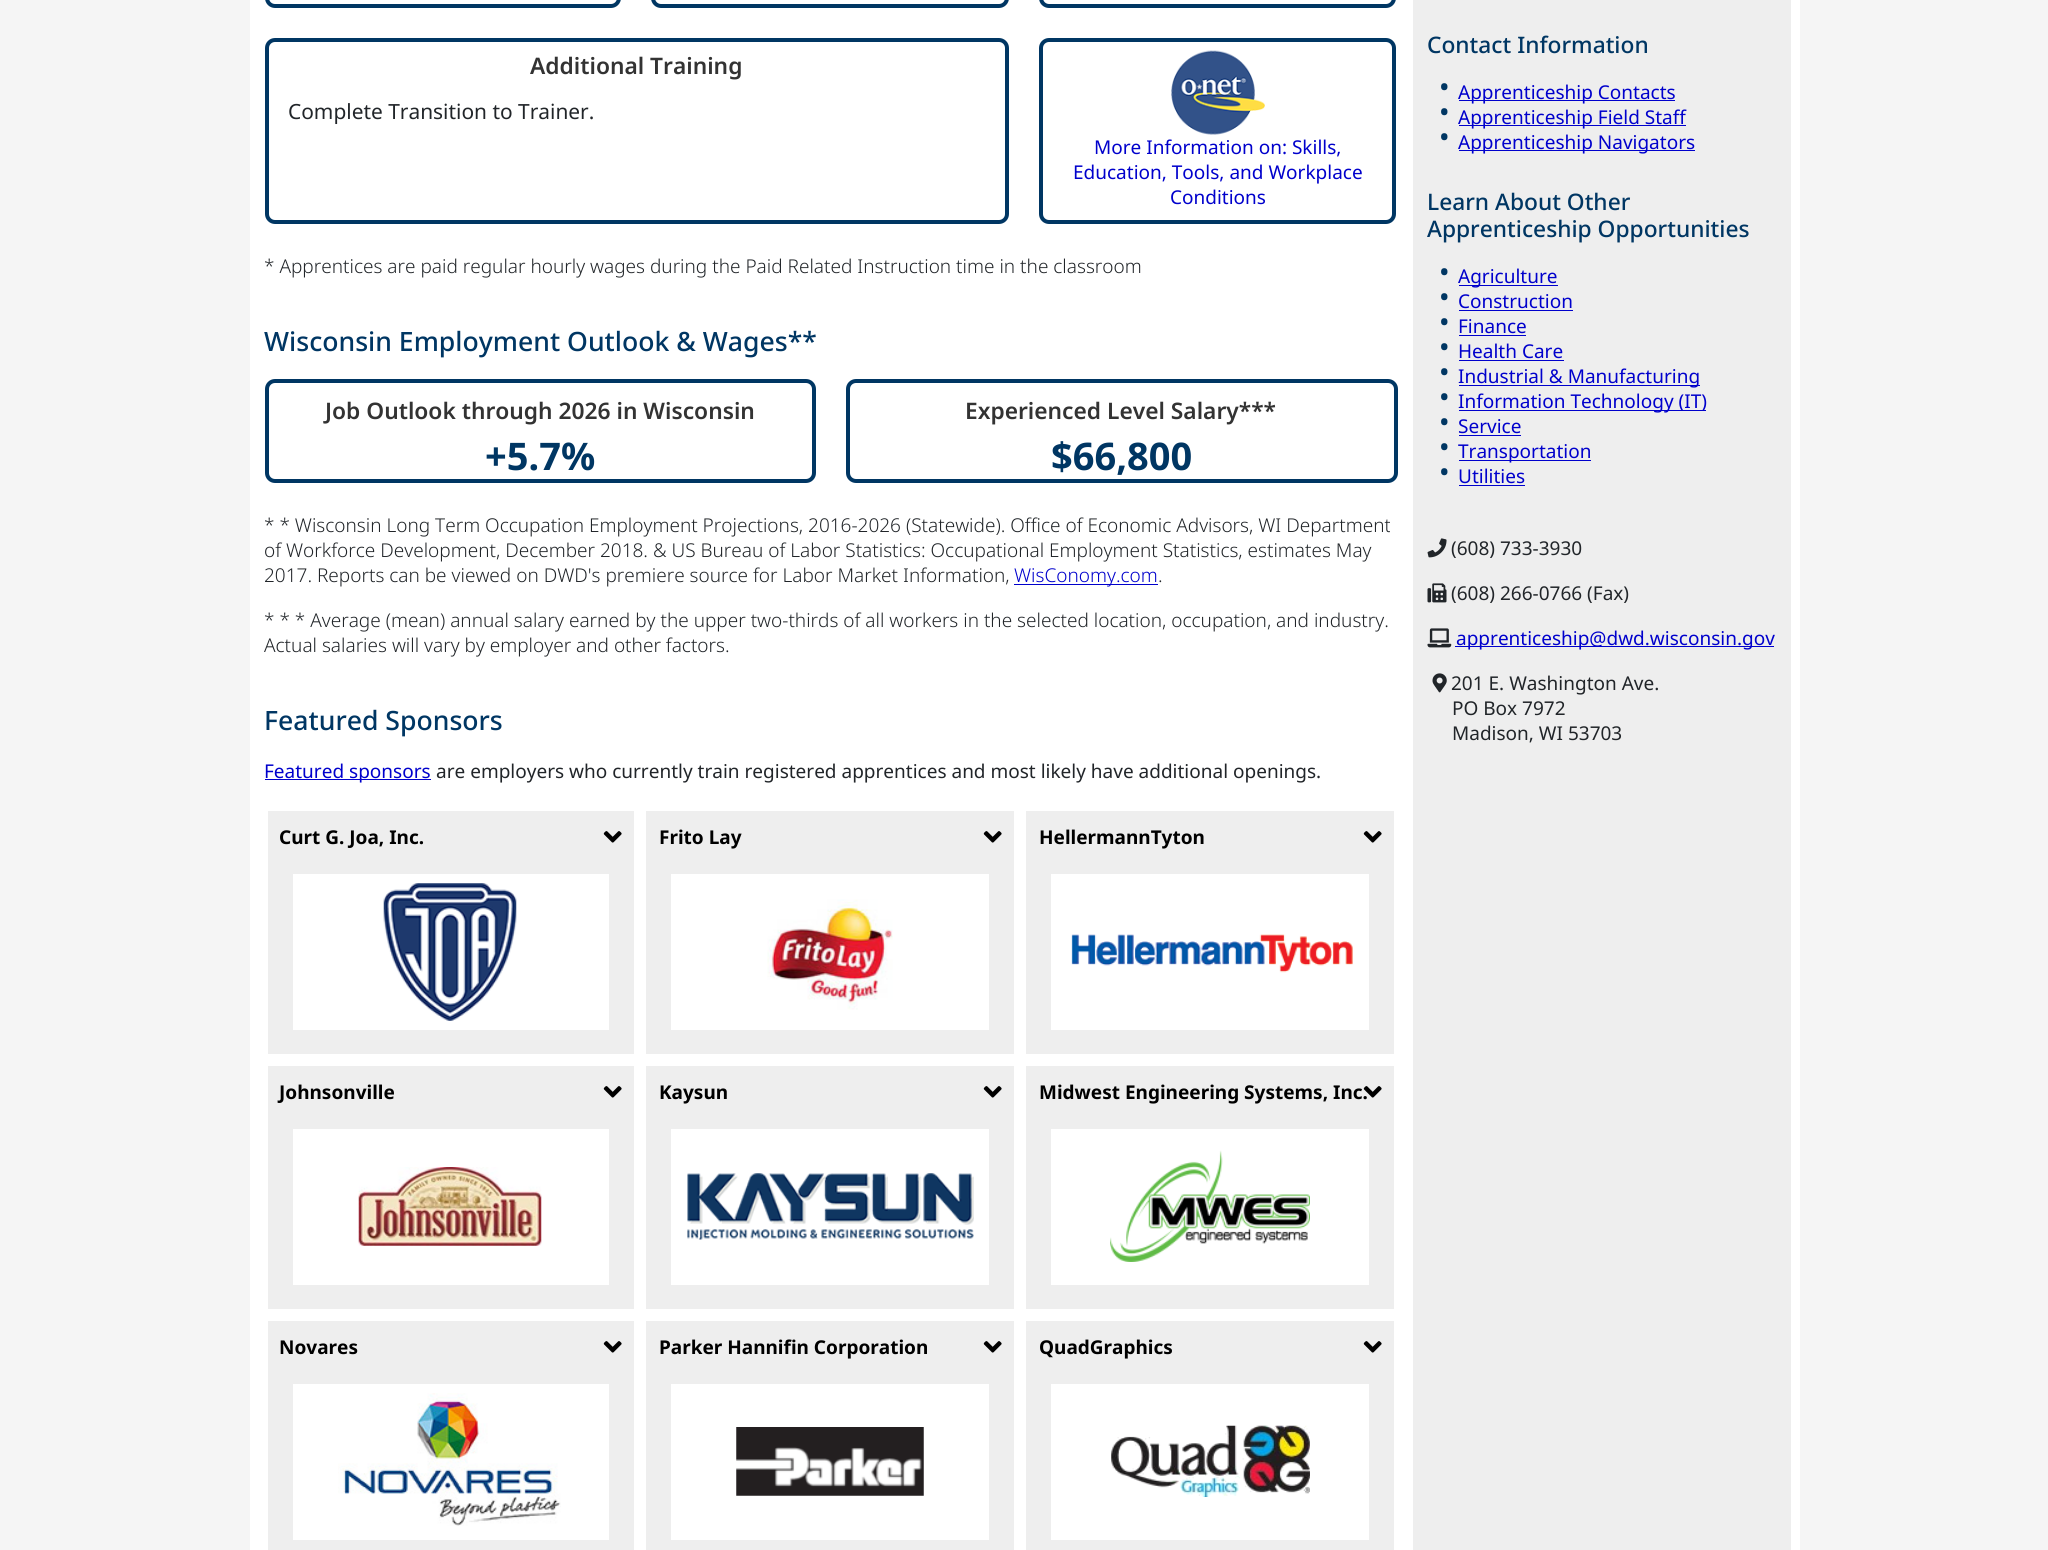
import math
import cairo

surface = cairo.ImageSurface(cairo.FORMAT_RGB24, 2048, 1550)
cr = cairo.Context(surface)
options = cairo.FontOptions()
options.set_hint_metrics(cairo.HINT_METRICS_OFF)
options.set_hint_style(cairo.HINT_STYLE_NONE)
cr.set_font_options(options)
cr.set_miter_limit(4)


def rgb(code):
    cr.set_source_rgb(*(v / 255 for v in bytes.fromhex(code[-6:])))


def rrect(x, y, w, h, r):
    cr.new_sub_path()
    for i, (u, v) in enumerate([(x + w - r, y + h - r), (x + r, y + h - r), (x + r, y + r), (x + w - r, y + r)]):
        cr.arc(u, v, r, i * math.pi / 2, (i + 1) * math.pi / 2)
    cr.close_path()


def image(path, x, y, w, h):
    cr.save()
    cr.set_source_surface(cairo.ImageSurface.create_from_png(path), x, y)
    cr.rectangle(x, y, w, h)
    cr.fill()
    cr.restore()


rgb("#f5f5f5")
cr.paint()
rgb("#ffffff")
cr.rectangle(250, 0, 1550, 1550)
cr.fill()
rrect(267, -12, 352, 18, 8)
rgb("#003663")
cr.set_line_width(4)
cr.stroke()
rrect(653, -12, 354, 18, 8)
cr.stroke()
rrect(1041, -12, 353, 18, 8)
cr.stroke()
rrect(267, 40, 740, 182, 8)
cr.stroke()
rrect(1041, 40, 353, 182, 8)
cr.stroke()
image("img/1.png", 1171, 50, 94, 85)
rrect(267, 381, 547, 100, 8)
cr.stroke()
rrect(848, 381, 548, 100, 8)
cr.stroke()
for x, y, w, h, color in [
    (1014, 584, 144, 1, "#0000cc"),
    (265, 779, 166, 1, "#0000cc"),
    (268, 811, 366, 243, "#eeeeee"),
]:
    rgb(color)
    cr.rectangle(x, y, w, h)
    cr.fill()
image("img/2.png", 603, 831, 19, 12)
rgb("#ffffff")
cr.rectangle(293, 874, 316, 156)
cr.fill()
image("img/3.png", 383, 883, 134, 138)
rgb("#eeeeee")
cr.rectangle(646, 811, 368, 243)
cr.fill()
image("img/2.png", 983, 831, 19, 12)
rgb("#ffffff")
cr.rectangle(671, 874, 318, 156)
cr.fill()
image("img/4.png", 767, 899, 126, 111)
rgb("#eeeeee")
cr.rectangle(1026, 811, 368, 243)
cr.fill()
image("img/2.png", 1363, 831, 19, 12)
rgb("#ffffff")
cr.rectangle(1051, 874, 318, 156)
cr.fill()
image("img/5.png", 1071, 934, 282, 39)
rgb("#eeeeee")
cr.rectangle(268, 1066, 366, 243)
cr.fill()
image("img/2.png", 603, 1086, 19, 12)
rgb("#ffffff")
cr.rectangle(293, 1129, 316, 156)
cr.fill()
image("img/6.png", 358, 1167, 184, 79)
rgb("#eeeeee")
cr.rectangle(646, 1066, 368, 243)
cr.fill()
image("img/2.png", 983, 1086, 19, 12)
rgb("#ffffff")
cr.rectangle(671, 1129, 318, 156)
cr.fill()
image("img/7.png", 687, 1173, 287, 67)
rgb("#eeeeee")
cr.rectangle(1026, 1066, 368, 243)
cr.fill()
rgb("#ffffff")
cr.rectangle(1051, 1129, 318, 156)
cr.fill()
image("img/9.png", 1110, 1150, 200, 112)
rgb("#eeeeee")
cr.rectangle(268, 1321, 366, 229)
cr.fill()
image("img/2.png", 603, 1341, 19, 12)
rgb("#ffffff")
cr.rectangle(293, 1384, 316, 156)
cr.fill()
image("img/10.png", 338, 1393, 223, 133)
rgb("#eeeeee")
cr.rectangle(646, 1321, 368, 229)
cr.fill()
image("img/2.png", 983, 1341, 19, 12)
rgb("#ffffff")
cr.rectangle(671, 1384, 318, 156)
cr.fill()
image("img/11.png", 736, 1427, 188, 69)
rgb("#eeeeee")
cr.rectangle(1026, 1321, 368, 229)
cr.fill()
image("img/2.png", 1363, 1341, 19, 12)
rgb("#ffffff")
cr.rectangle(1051, 1384, 318, 156)
cr.fill()
image("img/12.png", 1111, 1425, 199, 72)
for x, y, w, h, color in [
    (1413, 0, 378, 1550, "#eeeeee"),
    (1459, 100, 216, 1, "#0000cc"),
    (1459, 125, 227, 1, "#0000cc"),
    (1459, 150, 236, 1, "#0000cc"),
    (1459, 285, 99, 1, "#0000cc"),
    (1459, 310, 114, 1, "#0000cc"),
    (1459, 335, 67, 1, "#0000cc"),
    (1459, 360, 105, 1, "#0000cc"),
    (1459, 385, 241, 1, "#0000cc"),
    (1459, 410, 247, 1, "#0000cc"),
    (1459, 435, 62, 1, "#0000cc"),
    (1459, 460, 132, 1, "#0000cc"),
    (1459, 485, 66, 1, "#0000cc"),
]:
    rgb(color)
    cr.rectangle(x, y, w, h)
    cr.fill()
image("img/13.png", 1427, 538, 20, 20)
image("img/14.png", 1427, 583, 20, 20)
image("img/15.png", 1427, 628, 25, 20)
cr.rectangle(1455, 646, 319, 1)
cr.fill()
image("img/16.png", 1432, 673, 15, 20)
cr.select_font_face("Noto Sans SemiBold")
cr.set_font_size(22.75)
rgb("#333333")
cr.move_to(530, 74)
cr.show_text("Additional Training")
cr.select_font_face("Noto Sans")
cr.set_font_size(20.9)
rgb("#212529")
cr.move_to(288, 119)
cr.show_text("Complete Transition to Trainer.")
cr.set_font_size(19)
rgb("#0000cc")
for x, y, s in [
    (1094, 154, "More Information on: Skills,"),
    (1073, 179, "Education, Tools, and Workplace"),
    (1170, 204, "Conditions"),
]:
    cr.move_to(x, y)
    cr.show_text(s)
cr.select_font_face("Noto Sans Light")
rgb("#212529")
cr.move_to(264, 273)
cr.show_text("* Apprentices are paid regular hourly wages during the Paid Related Instruction time in the classroom")
cr.select_font_face("Noto Sans Medium")
cr.set_font_size(26.6)
rgb("#003663")
cr.move_to(264, 351)
cr.show_text("Wisconsin Employment Outlook & Wages**")
cr.select_font_face("Noto Sans SemiBold")
cr.set_font_size(22.75)
rgb("#333333")
cr.move_to(325, 419)
cr.show_text("Job Outlook through 2026 in Wisconsin")
cr.select_font_face("Noto Sans", cairo.FONT_SLANT_NORMAL, cairo.FONT_WEIGHT_BOLD)
cr.set_font_size(38)
rgb("#003663")
cr.move_to(485, 470)
cr.show_text("+5.7%")
cr.select_font_face("Noto Sans SemiBold")
cr.set_font_size(22.75)
rgb("#333333")
cr.move_to(965, 419)
cr.show_text("Experienced Level Salary***")
cr.select_font_face("Noto Sans", cairo.FONT_SLANT_NORMAL, cairo.FONT_WEIGHT_BOLD)
cr.set_font_size(38)
rgb("#003663")
cr.move_to(1051, 470)
cr.show_text("$66,800")
cr.select_font_face("Noto Sans Light")
cr.set_font_size(19)
rgb("#212529")
for x, y, s in [
    (264, 532, "* * Wisconsin Long Term Occupation Employment Projections, 2016-2026 (Statewide). Office of Economic Advisors, WI Department"),
    (264, 557, "of Workforce Development, December 2018. & US Bureau of Labor Statistics: Occupational Employment Statistics, estimates May"),
    (264, 582, "2017. Reports can be viewed on DWD's premiere source for Labor Market Information,"),
]:
    cr.move_to(x, y)
    cr.show_text(s)
rgb("#0000cc")
cr.move_to(1014, 582)
cr.show_text("WisConomy.com")
rgb("#212529")
for x, y, s in [
    (1158, 582, "."),
    (264, 627, "* * * Average (mean) annual salary earned by the upper two-thirds of all workers in the selected location, occupation, and industry."),
    (264, 652, "Actual salaries will vary by employer and other factors."),
]:
    cr.move_to(x, y)
    cr.show_text(s)
cr.select_font_face("Noto Sans Medium")
cr.set_font_size(26.6)
rgb("#003663")
cr.move_to(264, 730)
cr.show_text("Featured Sponsors")
cr.select_font_face("Noto Sans")
cr.set_font_size(19)
rgb("#0000cc")
cr.move_to(264, 778)
cr.show_text("Featured sponsors")
rgb("#212529")
cr.move_to(436, 778)
cr.show_text("are employers who currently train registered apprentices and most likely have additional openings.")
cr.select_font_face("Noto Sans", cairo.FONT_SLANT_NORMAL, cairo.FONT_WEIGHT_BOLD)
rgb("#000000")
for x, y, s in [
    (279, 844, "Curt G. Joa, Inc."),
    (659, 844, "Frito Lay"),
    (1039, 844, "HellermannTyton"),
    (279, 1099, "Johnsonville"),
    (659, 1099, "Kaysun"),
    (1039, 1099, "Midwest Engineering Systems, Inc."),
]:
    cr.move_to(x, y)
    cr.show_text(s)
image("img/8.png", 1363, 1086, 19, 12)
for x, y, s in [
    (279, 1354, "Novares"),
    (659, 1354, "Parker Hannifin Corporation"),
    (1039, 1354, "QuadGraphics"),
]:
    cr.move_to(x, y)
    cr.show_text(s)
cr.select_font_face("Noto Sans Medium")
cr.set_font_size(22.75)
rgb("#003663")
cr.move_to(1427, 53)
cr.show_text("Contact Information")
cr.select_font_face("Noto Sans", cairo.FONT_SLANT_NORMAL, cairo.FONT_WEIGHT_BOLD)
cr.move_to(1440, 95)
cr.show_text("•")
cr.select_font_face("Noto Sans")
cr.set_font_size(19)
rgb("#0000cc")
cr.move_to(1458, 99)
cr.show_text("Apprenticeship Contacts")
cr.select_font_face("Noto Sans", cairo.FONT_SLANT_NORMAL, cairo.FONT_WEIGHT_BOLD)
cr.set_font_size(22.75)
rgb("#003663")
cr.move_to(1440, 120)
cr.show_text("•")
cr.select_font_face("Noto Sans")
cr.set_font_size(19)
rgb("#0000cc")
cr.move_to(1458, 124)
cr.show_text("Apprenticeship Field Staff")
cr.select_font_face("Noto Sans", cairo.FONT_SLANT_NORMAL, cairo.FONT_WEIGHT_BOLD)
cr.set_font_size(22.75)
rgb("#003663")
cr.move_to(1440, 145)
cr.show_text("•")
cr.select_font_face("Noto Sans")
cr.set_font_size(19)
rgb("#0000cc")
cr.move_to(1458, 149)
cr.show_text("Apprenticeship Navigators")
cr.select_font_face("Noto Sans Medium")
cr.set_font_size(22.75)
rgb("#003663")
cr.move_to(1427, 210)
cr.show_text("Learn About Other")
cr.move_to(1427, 237)
cr.show_text("Apprenticeship Opportunities")
cr.select_font_face("Noto Sans", cairo.FONT_SLANT_NORMAL, cairo.FONT_WEIGHT_BOLD)
cr.move_to(1440, 280)
cr.show_text("•")
cr.select_font_face("Noto Sans")
cr.set_font_size(19)
rgb("#0000cc")
cr.move_to(1458, 283)
cr.show_text("Agriculture")
cr.select_font_face("Noto Sans", cairo.FONT_SLANT_NORMAL, cairo.FONT_WEIGHT_BOLD)
cr.set_font_size(22.75)
rgb("#003663")
cr.move_to(1440, 305)
cr.show_text("•")
cr.select_font_face("Noto Sans")
cr.set_font_size(19)
rgb("#0000cc")
cr.move_to(1458, 308)
cr.show_text("Construction")
cr.select_font_face("Noto Sans", cairo.FONT_SLANT_NORMAL, cairo.FONT_WEIGHT_BOLD)
cr.set_font_size(22.75)
rgb("#003663")
cr.move_to(1440, 330)
cr.show_text("•")
cr.select_font_face("Noto Sans")
cr.set_font_size(19)
rgb("#0000cc")
cr.move_to(1458, 333)
cr.show_text("Finance")
cr.select_font_face("Noto Sans", cairo.FONT_SLANT_NORMAL, cairo.FONT_WEIGHT_BOLD)
cr.set_font_size(22.75)
rgb("#003663")
cr.move_to(1440, 355)
cr.show_text("•")
cr.select_font_face("Noto Sans")
cr.set_font_size(19)
rgb("#0000cc")
cr.move_to(1458, 358)
cr.show_text("Health Care")
cr.select_font_face("Noto Sans", cairo.FONT_SLANT_NORMAL, cairo.FONT_WEIGHT_BOLD)
cr.set_font_size(22.75)
rgb("#003663")
cr.move_to(1440, 380)
cr.show_text("•")
cr.select_font_face("Noto Sans")
cr.set_font_size(19)
rgb("#0000cc")
cr.move_to(1458, 383)
cr.show_text("Industrial & Manufacturing")
cr.select_font_face("Noto Sans", cairo.FONT_SLANT_NORMAL, cairo.FONT_WEIGHT_BOLD)
cr.set_font_size(22.75)
rgb("#003663")
cr.move_to(1440, 405)
cr.show_text("•")
cr.select_font_face("Noto Sans")
cr.set_font_size(19)
rgb("#0000cc")
cr.move_to(1458, 408)
cr.show_text("Information Technology (IT)")
cr.select_font_face("Noto Sans", cairo.FONT_SLANT_NORMAL, cairo.FONT_WEIGHT_BOLD)
cr.set_font_size(22.75)
rgb("#003663")
cr.move_to(1440, 430)
cr.show_text("•")
cr.select_font_face("Noto Sans")
cr.set_font_size(19)
rgb("#0000cc")
cr.move_to(1458, 433)
cr.show_text("Service")
cr.select_font_face("Noto Sans", cairo.FONT_SLANT_NORMAL, cairo.FONT_WEIGHT_BOLD)
cr.set_font_size(22.75)
rgb("#003663")
cr.move_to(1440, 455)
cr.show_text("•")
cr.select_font_face("Noto Sans")
cr.set_font_size(19)
rgb("#0000cc")
cr.move_to(1458, 458)
cr.show_text("Transportation")
cr.select_font_face("Noto Sans", cairo.FONT_SLANT_NORMAL, cairo.FONT_WEIGHT_BOLD)
cr.set_font_size(22.75)
rgb("#003663")
cr.move_to(1440, 480)
cr.show_text("•")
cr.select_font_face("Noto Sans")
cr.set_font_size(19)
rgb("#0000cc")
cr.move_to(1458, 483)
cr.show_text("Utilities")
rgb("#212529")
cr.move_to(1451, 555)
cr.show_text("(608) 733-3930")
cr.move_to(1451, 600)
cr.show_text("(608) 266-0766 (Fax)")
rgb("#0000cc")
cr.move_to(1456, 645)
cr.show_text("apprenticeship@dwd.wisconsin.gov")
rgb("#212529")
for x, y, s in [
    (1451, 690, "201 E. Washington Ave."),
    (1452, 715, "PO Box 7972"),
    (1452, 740, "Madison, WI 53703"),
]:
    cr.move_to(x, y)
    cr.show_text(s)
surface.write_to_png("page.png")
